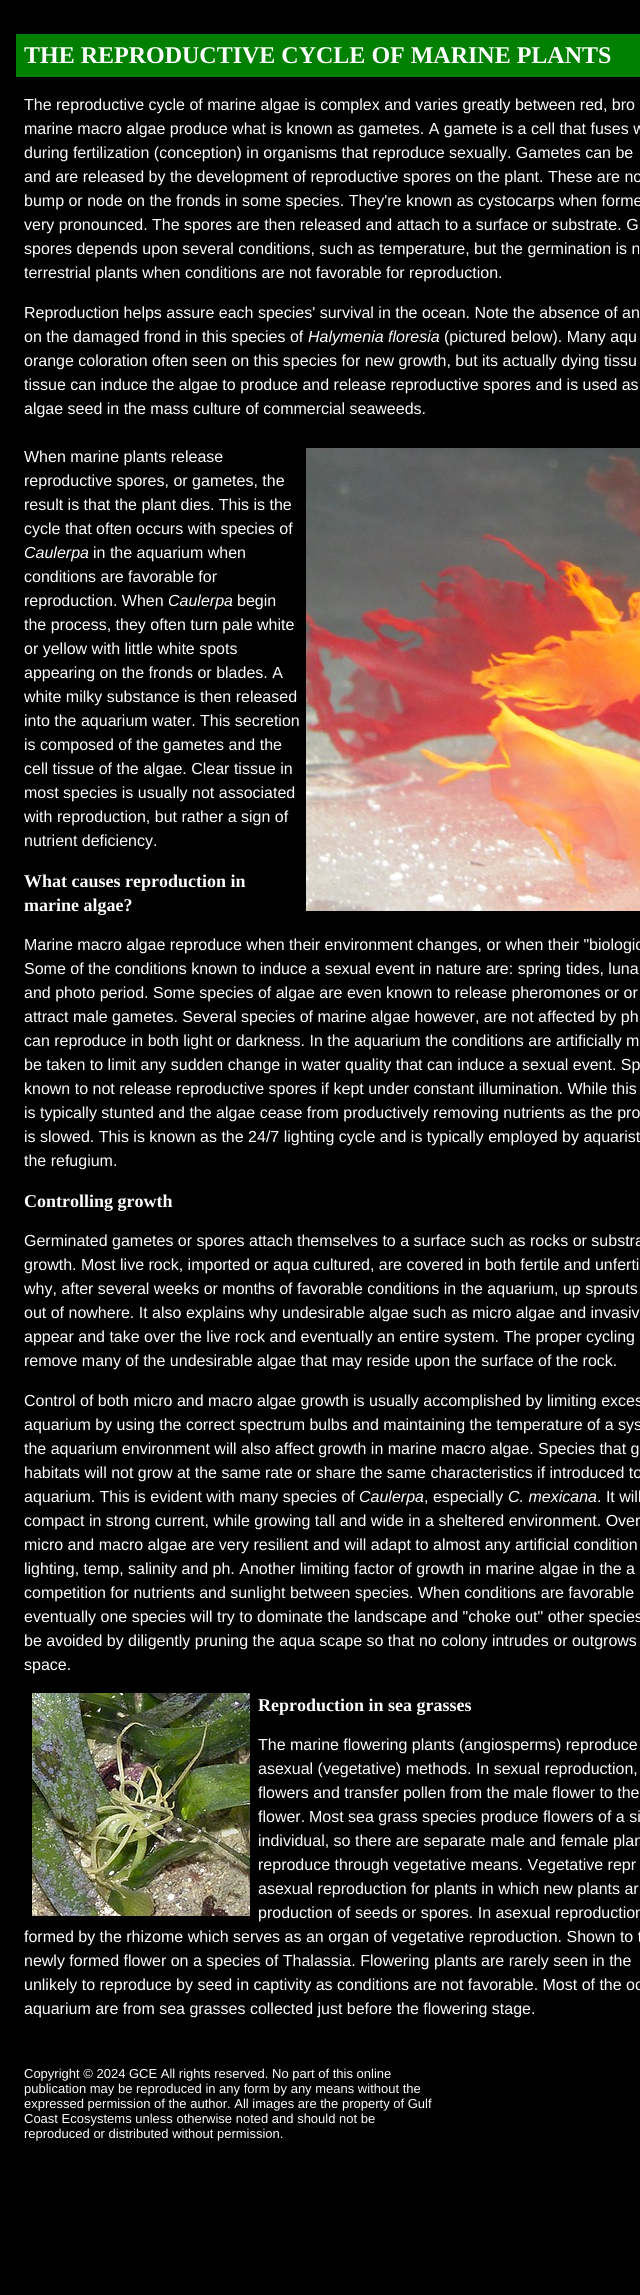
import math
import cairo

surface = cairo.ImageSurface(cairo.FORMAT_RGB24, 640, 2295)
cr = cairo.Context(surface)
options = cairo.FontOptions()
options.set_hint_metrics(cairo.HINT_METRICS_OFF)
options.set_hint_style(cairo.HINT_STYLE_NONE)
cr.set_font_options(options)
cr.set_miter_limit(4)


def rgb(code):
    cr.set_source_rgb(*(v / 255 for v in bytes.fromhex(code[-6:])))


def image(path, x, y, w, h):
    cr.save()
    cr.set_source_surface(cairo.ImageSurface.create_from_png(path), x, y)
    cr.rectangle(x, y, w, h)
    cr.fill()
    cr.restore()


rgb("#000000")
cr.paint()
rgb("#008000")
cr.rectangle(16, 34, 624, 43)
cr.fill()
image("img/1.png", 306, 448, 334, 463)
image("img/2.png", 32, 1693, 218, 223)
cr.select_font_face("Liberation Serif", cairo.FONT_SLANT_NORMAL, cairo.FONT_WEIGHT_BOLD)
cr.set_font_size(24)
rgb("#ffffff")
cr.move_to(24, 63)
cr.show_text("THE REPRODUCTIVE CYCLE OF MARINE PLANTS")
cr.select_font_face("Liberation Sans")
cr.set_font_size(16)
for x, y, s in [
    (24, 110, "The reproductive cycle of marine algae is complex and varies greatly between red, bro"),
    (24, 134, "marine macro algae produce what is known as gametes. A gamete is a cell that fuses w"),
    (24, 158, "during fertilization (conception) in organisms that reproduce sexually. Gametes can be"),
    (24, 182, "and are released by the development of reproductive spores on the plant. These are no"),
    (24, 206, "bump or node on the fronds in some species. They're known as cystocarps when forme"),
    (24, 230, "very pronounced. The spores are then released and attach to a surface or substrate. G"),
    (24, 254, "spores depends upon several conditions, such as temperature, but the germination is n"),
    (24, 278, "terrestrial plants when conditions are not favorable for reproduction."),
    (24, 318, "Reproduction helps assure each species' survival in the ocean. Note the absence of an"),
    (24, 342, "on the damaged frond in this species of"),
]:
    cr.move_to(x, y)
    cr.show_text(s)
cr.select_font_face("Liberation Sans", cairo.FONT_SLANT_ITALIC)
cr.move_to(308, 342)
cr.show_text("Halymenia floresia")
cr.select_font_face("Liberation Sans")
for x, y, s in [
    (444, 342, "(pictured below). Many aqu"),
    (24, 366, "orange coloration often seen on this species for new growth, but its actually dying tissu"),
    (24, 390, "tissue can induce the algae to produce and release reproductive spores and is used as"),
    (24, 414, "algae seed in the mass culture of commercial seaweeds."),
    (24, 462, "When marine plants release"),
    (24, 486, "reproductive spores, or gametes, the"),
    (24, 510, "result is that the plant dies. This is the"),
    (24, 534, "cycle that often occurs with species of"),
]:
    cr.move_to(x, y)
    cr.show_text(s)
cr.select_font_face("Liberation Sans", cairo.FONT_SLANT_ITALIC)
cr.move_to(24, 558)
cr.show_text("Caulerpa")
cr.select_font_face("Liberation Sans")
for x, y, s in [
    (93, 558, "in the aquarium when"),
    (24, 582, "conditions are favorable for"),
    (24, 606, "reproduction. When"),
]:
    cr.move_to(x, y)
    cr.show_text(s)
cr.select_font_face("Liberation Sans", cairo.FONT_SLANT_ITALIC)
cr.move_to(168, 606)
cr.show_text("Caulerpa")
cr.select_font_face("Liberation Sans")
for x, y, s in [
    (237, 606, "begin"),
    (24, 630, "the process, they often turn pale white"),
    (24, 654, "or yellow with little white spots"),
    (24, 678, "appearing on the fronds or blades. A"),
    (24, 702, "white milky substance is then released"),
    (24, 726, "into the aquarium water. This secretion"),
    (24, 750, "is composed of the gametes and the"),
    (24, 774, "cell tissue of the algae. Clear tissue in"),
    (24, 798, "most species is usually not associated"),
    (24, 822, "with reproduction, but rather a sign of"),
    (24, 846, "nutrient deficiency."),
]:
    cr.move_to(x, y)
    cr.show_text(s)
cr.select_font_face("Liberation Serif", cairo.FONT_SLANT_NORMAL, cairo.FONT_WEIGHT_BOLD)
cr.set_font_size(18)
cr.move_to(24, 887)
cr.show_text("What causes reproduction in")
cr.move_to(24, 911)
cr.show_text("marine algae?")
cr.select_font_face("Liberation Sans")
cr.set_font_size(16)
for x, y, s in [
    (24, 950, "Marine macro algae reproduce when their environment changes, or when their \"biologic"),
    (24, 974, "Some of the conditions known to induce a sexual event in nature are: spring tides, luna"),
    (24, 998, "and photo period. Some species of algae are even known to release pheromones or or"),
    (24, 1022, "attract male gametes. Several species of marine algae however, are not affected by ph"),
    (24, 1046, "can reproduce in both light or darkness. In the aquarium the conditions are artificially m"),
    (24, 1070, "be taken to limit any sudden change in water quality that can induce a sexual event. Sp"),
    (24, 1094, "known to not release reproductive spores if kept under constant illumination. While this"),
    (24, 1118, "is typically stunted and the algae cease from productively removing nutrients as the pro"),
    (24, 1142, "is slowed. This is known as the 24/7 lighting cycle and is typically employed by aquarist"),
    (24, 1166, "the refugium."),
]:
    cr.move_to(x, y)
    cr.show_text(s)
cr.select_font_face("Liberation Serif", cairo.FONT_SLANT_NORMAL, cairo.FONT_WEIGHT_BOLD)
cr.set_font_size(18)
cr.move_to(24, 1207)
cr.show_text("Controlling growth")
cr.select_font_face("Liberation Sans")
cr.set_font_size(16)
for x, y, s in [
    (24, 1246, "Germinated gametes or spores attach themselves to a surface such as rocks or substra"),
    (24, 1270, "growth. Most live rock, imported or aqua cultured, are covered in both fertile and unferti"),
    (24, 1294, "why, after several weeks or months of favorable conditions in the aquarium, up sprouts"),
    (24, 1318, "out of nowhere. It also explains why undesirable algae such as micro algae and invasiv"),
    (24, 1342, "appear and take over the live rock and eventually an entire system. The proper cycling"),
    (24, 1366, "remove many of the undesirable algae that may reside upon the surface of the rock."),
    (24, 1406, "Control of both micro and macro algae growth is usually accomplished by limiting exces"),
    (24, 1430, "aquarium by using the correct spectrum bulbs and maintaining the temperature of a sys"),
    (24, 1454, "the aquarium environment will also affect growth in marine macro algae. Species that g"),
    (24, 1478, "habitats will not grow at the same rate or share the same characteristics if introduced to"),
    (24, 1502, "aquarium. This is evident with many species of"),
]:
    cr.move_to(x, y)
    cr.show_text(s)
cr.select_font_face("Liberation Sans", cairo.FONT_SLANT_ITALIC)
cr.move_to(359, 1502)
cr.show_text("Caulerpa")
cr.select_font_face("Liberation Sans")
cr.move_to(424, 1502)
cr.show_text(", especially")
cr.select_font_face("Liberation Sans", cairo.FONT_SLANT_ITALIC)
cr.move_to(508, 1502)
cr.show_text("C. mexicana")
cr.select_font_face("Liberation Sans")
for x, y, s in [
    (597, 1502, ". It will"),
    (24, 1526, "compact in strong current, while growing tall and wide in a sheltered environment. Over"),
    (24, 1550, "micro and macro algae are very resilient and will adapt to almost any artificial condition"),
    (24, 1574, "lighting, temp, salinity and ph. Another limiting factor of growth in marine algae in the a"),
    (24, 1598, "competition for nutrients and sunlight between species. When conditions are favorable"),
    (24, 1622, "eventually one species will try to dominate the landscape and \"choke out\" other species"),
    (24, 1646, "be avoided by diligently pruning the aqua scape so that no colony intrudes or outgrows"),
    (24, 1670, "space."),
]:
    cr.move_to(x, y)
    cr.show_text(s)
cr.select_font_face("Liberation Serif", cairo.FONT_SLANT_NORMAL, cairo.FONT_WEIGHT_BOLD)
cr.set_font_size(18)
cr.move_to(258, 1711)
cr.show_text("Reproduction in sea grasses")
cr.select_font_face("Liberation Sans")
cr.set_font_size(16)
for x, y, s in [
    (258, 1750, "The marine flowering plants (angiosperms) reproduce"),
    (258, 1774, "asexual (vegetative) methods. In sexual reproduction,"),
    (258, 1798, "flowers and transfer pollen from the male flower to the"),
    (258, 1822, "flower."),
    (309, 1822, "Most sea grass species produce flowers of a si"),
    (258, 1846, "individual, so there are separate male and female plan"),
    (258, 1870, "reproduce through vegetative means. Vegetative repr"),
    (258, 1894, "asexual reproduction for plants in which new plants ar"),
    (258, 1918, "production of seeds or spores. In asexual reproduction"),
    (24, 1942, "formed by the rhizome which serves as an organ of vegetative reproduction. Shown to t"),
    (24, 1966, "newly formed flower on a species of Thalassia. Flowering plants are rarely seen in the"),
    (24, 1990, "unlikely to reproduce by seed in captivity as conditions are not favorable. Most of the oc"),
    (24, 2014, "aquarium are from sea grasses collected just before the flowering stage."),
]:
    cr.move_to(x, y)
    cr.show_text(s)
cr.set_font_size(13)
for x, y, s in [
    (24, 2078, "Copyright © 2024 GCE All rights reserved. No part of this online"),
    (24, 2093, "publication may be reproduced in any form by any means without the"),
    (24, 2108, "expressed permission of the author. All images are the property of Gulf"),
    (24, 2123, "Coast Ecosystems unless otherwise noted and should not be"),
    (24, 2138, "reproduced or distributed without permission."),
]:
    cr.move_to(x, y)
    cr.show_text(s)
surface.write_to_png("page.png")
